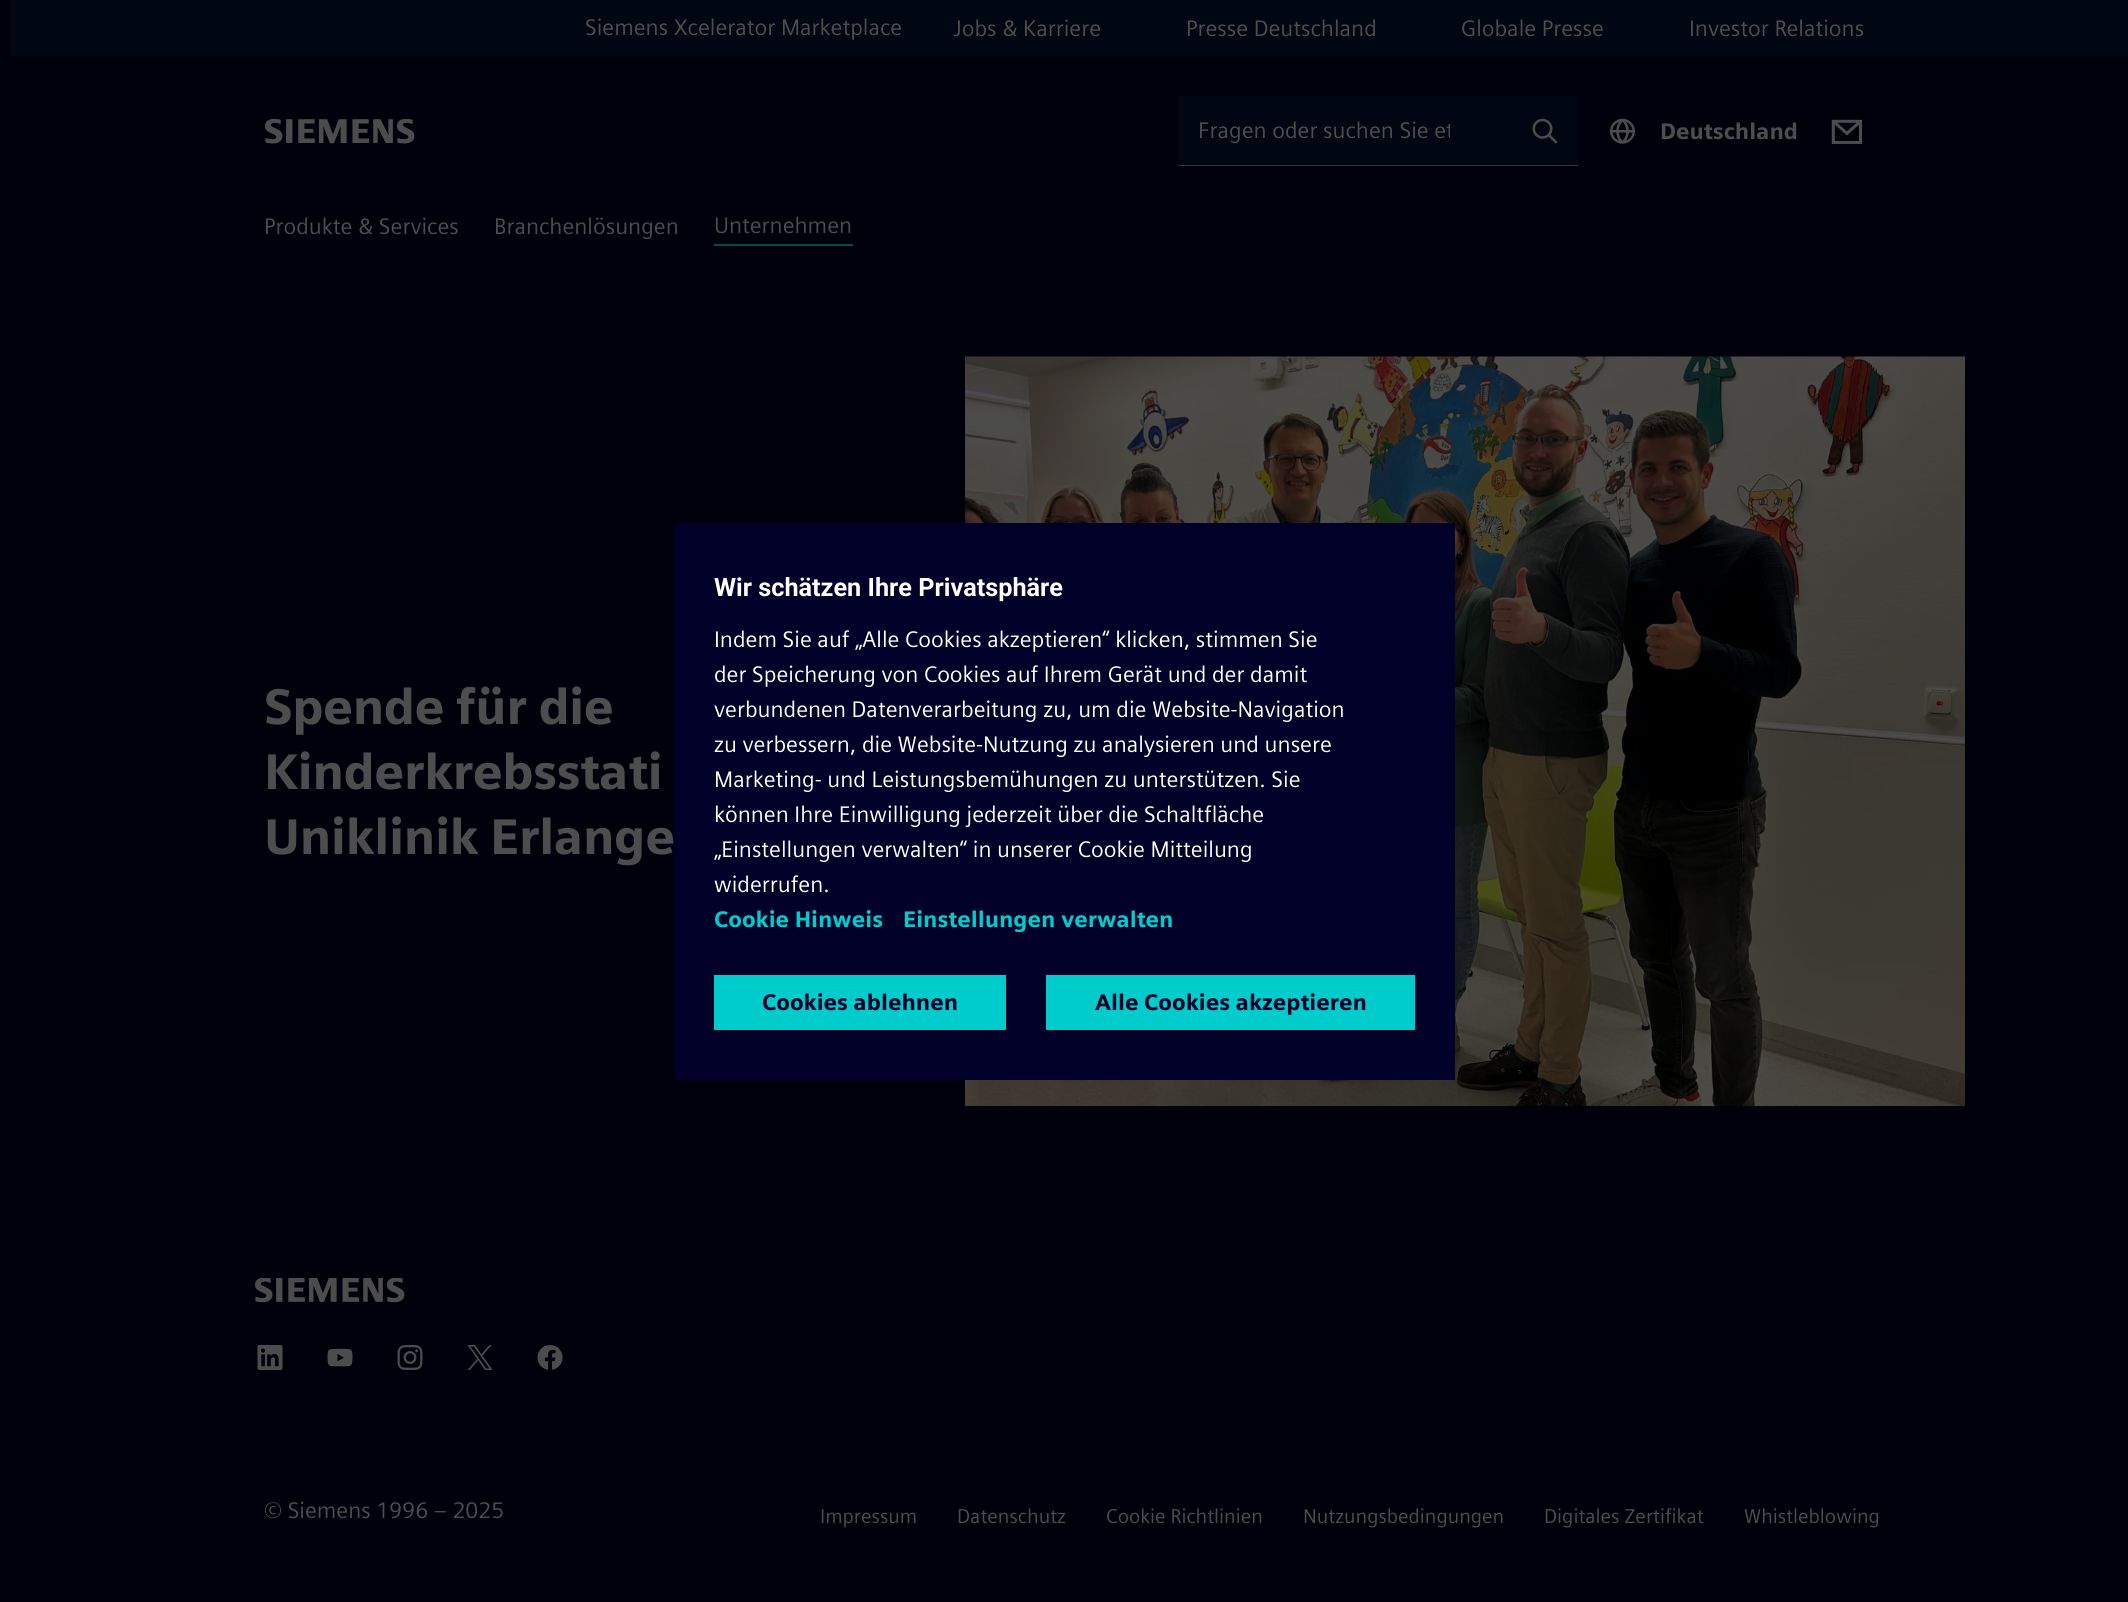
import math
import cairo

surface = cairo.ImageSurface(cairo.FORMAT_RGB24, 2128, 1602)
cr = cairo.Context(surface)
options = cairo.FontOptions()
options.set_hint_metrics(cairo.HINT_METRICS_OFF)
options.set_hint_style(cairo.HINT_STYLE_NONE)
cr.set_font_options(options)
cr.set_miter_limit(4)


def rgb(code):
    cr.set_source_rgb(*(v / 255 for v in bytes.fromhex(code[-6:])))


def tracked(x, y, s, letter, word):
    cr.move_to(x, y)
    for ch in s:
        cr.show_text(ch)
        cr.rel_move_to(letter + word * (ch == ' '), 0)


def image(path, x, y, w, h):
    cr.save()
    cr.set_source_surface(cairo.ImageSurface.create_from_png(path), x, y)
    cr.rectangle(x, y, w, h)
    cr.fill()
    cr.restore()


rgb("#00000c")
cr.paint()
rgb("#000712")
cr.rectangle(10, 0, 2118, 56)
cr.fill()
image("img/1.png", 265, 119, 150, 25)
cr.rectangle(1178, 96, 400, 69)
cr.fill()
rgb("#363639")
cr.rectangle(1178, 165, 400, 1)
cr.fill()
image("img/2.png", 1532, 118, 26, 26)
image("img/3.png", 1610, 118, 25, 26)
image("img/4.png", 1831, 119, 31, 25)
rgb("#004d38")
cr.rectangle(714, 244, 139, 2)
cr.fill()
image("img/5.png", 965, 356, 1000, 751)
image("img/6.png", 255, 1278, 150, 25)
image("img/7.png", 257, 1345, 26, 25)
image("img/8.png", 327, 1348, 26, 19)
image("img/9.png", 397, 1345, 26, 25)
image("img/10.png", 467, 1345, 26, 25)
image("img/11.png", 537, 1345, 26, 25)
for x, y, w, h, color in [
    (674, 523, 781, 557, "#000028"),
    (714, 975, 292, 55, "#00cccc"),
    (1046, 975, 369, 55, "#00cccc"),
]:
    rgb(color)
    cr.rectangle(x, y, w, h)
    cr.fill()
cr.select_font_face("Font")
cr.set_font_size(22.5)
rgb("#4d4d4d")
for x, y, s in [
    (585, 35, "Siemens Xcelerator Marketplace"),
    (953, 36, "Jobs & Karriere"),
    (1186, 36, "Presse Deutschland"),
    (1461, 36, "Globale Presse"),
    (1689, 36, "Investor Relations"),
]:
    cr.move_to(x, y)
    cr.show_text(s)
cr.save()
cr.rectangle(1198, 118, 252, 27)
cr.clip()
cr.move_to(1198, 138)
cr.show_text("Fragen oder suchen Sie et")
cr.restore()
cr.select_font_face("Font", cairo.FONT_SLANT_NORMAL, cairo.FONT_WEIGHT_BOLD)
cr.move_to(1660, 139)
cr.show_text("Deutschland")
cr.select_font_face("Font")
for x, y, s in [
    (264, 234, "Produkte & Services"),
    (494, 234, "Branchenlösungen"),
    (714, 233, "Unternehmen"),
]:
    cr.move_to(x, y)
    cr.show_text(s)
cr.select_font_face("Font", cairo.FONT_SLANT_NORMAL, cairo.FONT_WEIGHT_BOLD)
cr.set_font_size(50)
for x, y, s in [
    (264, 724, "Spende für die"),
    (264, 789, "Kinderkrebsstati"),
    (264, 854, "Uniklinik Erlange"),
]:
    tracked(x, y, s, -0.6, 0)
cr.select_font_face("Font")
cr.set_font_size(22.5)
cr.move_to(264, 1518)
cr.show_text("© Siemens 1996 – 2025")
cr.set_font_size(20)
for x, y, s in [
    (820, 1523, "Impressum"),
    (957, 1523, "Datenschutz"),
    (1106, 1523, "Cookie Richtlinien"),
    (1303, 1523, "Nutzungsbedingungen"),
    (1544, 1523, "Digitales Zertifikat"),
    (1744, 1523, "Whistleblowing"),
]:
    cr.move_to(x, y)
    cr.show_text(s)
cr.select_font_face("Roboto", cairo.FONT_SLANT_NORMAL, cairo.FONT_WEIGHT_BOLD)
cr.set_font_size(25.25)
rgb("#ffffff")
cr.move_to(714, 596)
cr.show_text("Wir schätzen Ihre Privatsphäre")
cr.select_font_face("Font")
cr.set_font_size(22.5)
for x, y, s in [
    (714, 647, "Indem Sie auf „Alle Cookies akzeptieren“ klicken, stimmen Sie"),
    (714, 682, "der Speicherung von Cookies auf Ihrem Gerät und der damit"),
    (714, 717, "verbundenen Datenverarbeitung zu, um die Website-Navigation"),
    (714, 752, "zu verbessern, die Website-Nutzung zu analysieren und unsere"),
    (714, 787, "Marketing- und Leistungsbemühungen zu unterstützen. Sie"),
    (714, 822, "können Ihre Einwilligung jederzeit über die Schaltfläche"),
    (714, 857, "„Einstellungen verwalten“ in unserer Cookie Mitteilung"),
    (714, 892, "widerrufen."),
]:
    cr.move_to(x, y)
    cr.show_text(s)
cr.select_font_face("Font", cairo.FONT_SLANT_NORMAL, cairo.FONT_WEIGHT_BOLD)
rgb("#00cccc")
cr.move_to(714, 927)
cr.show_text("Cookie Hinweis")
cr.move_to(903, 927)
cr.show_text("Einstellungen verwalten")
rgb("#000028")
cr.move_to(762, 1010)
cr.show_text("Cookies ablehnen")
cr.move_to(1095, 1010)
cr.show_text("Alle Cookies akzeptieren")
surface.write_to_png("page.png")
